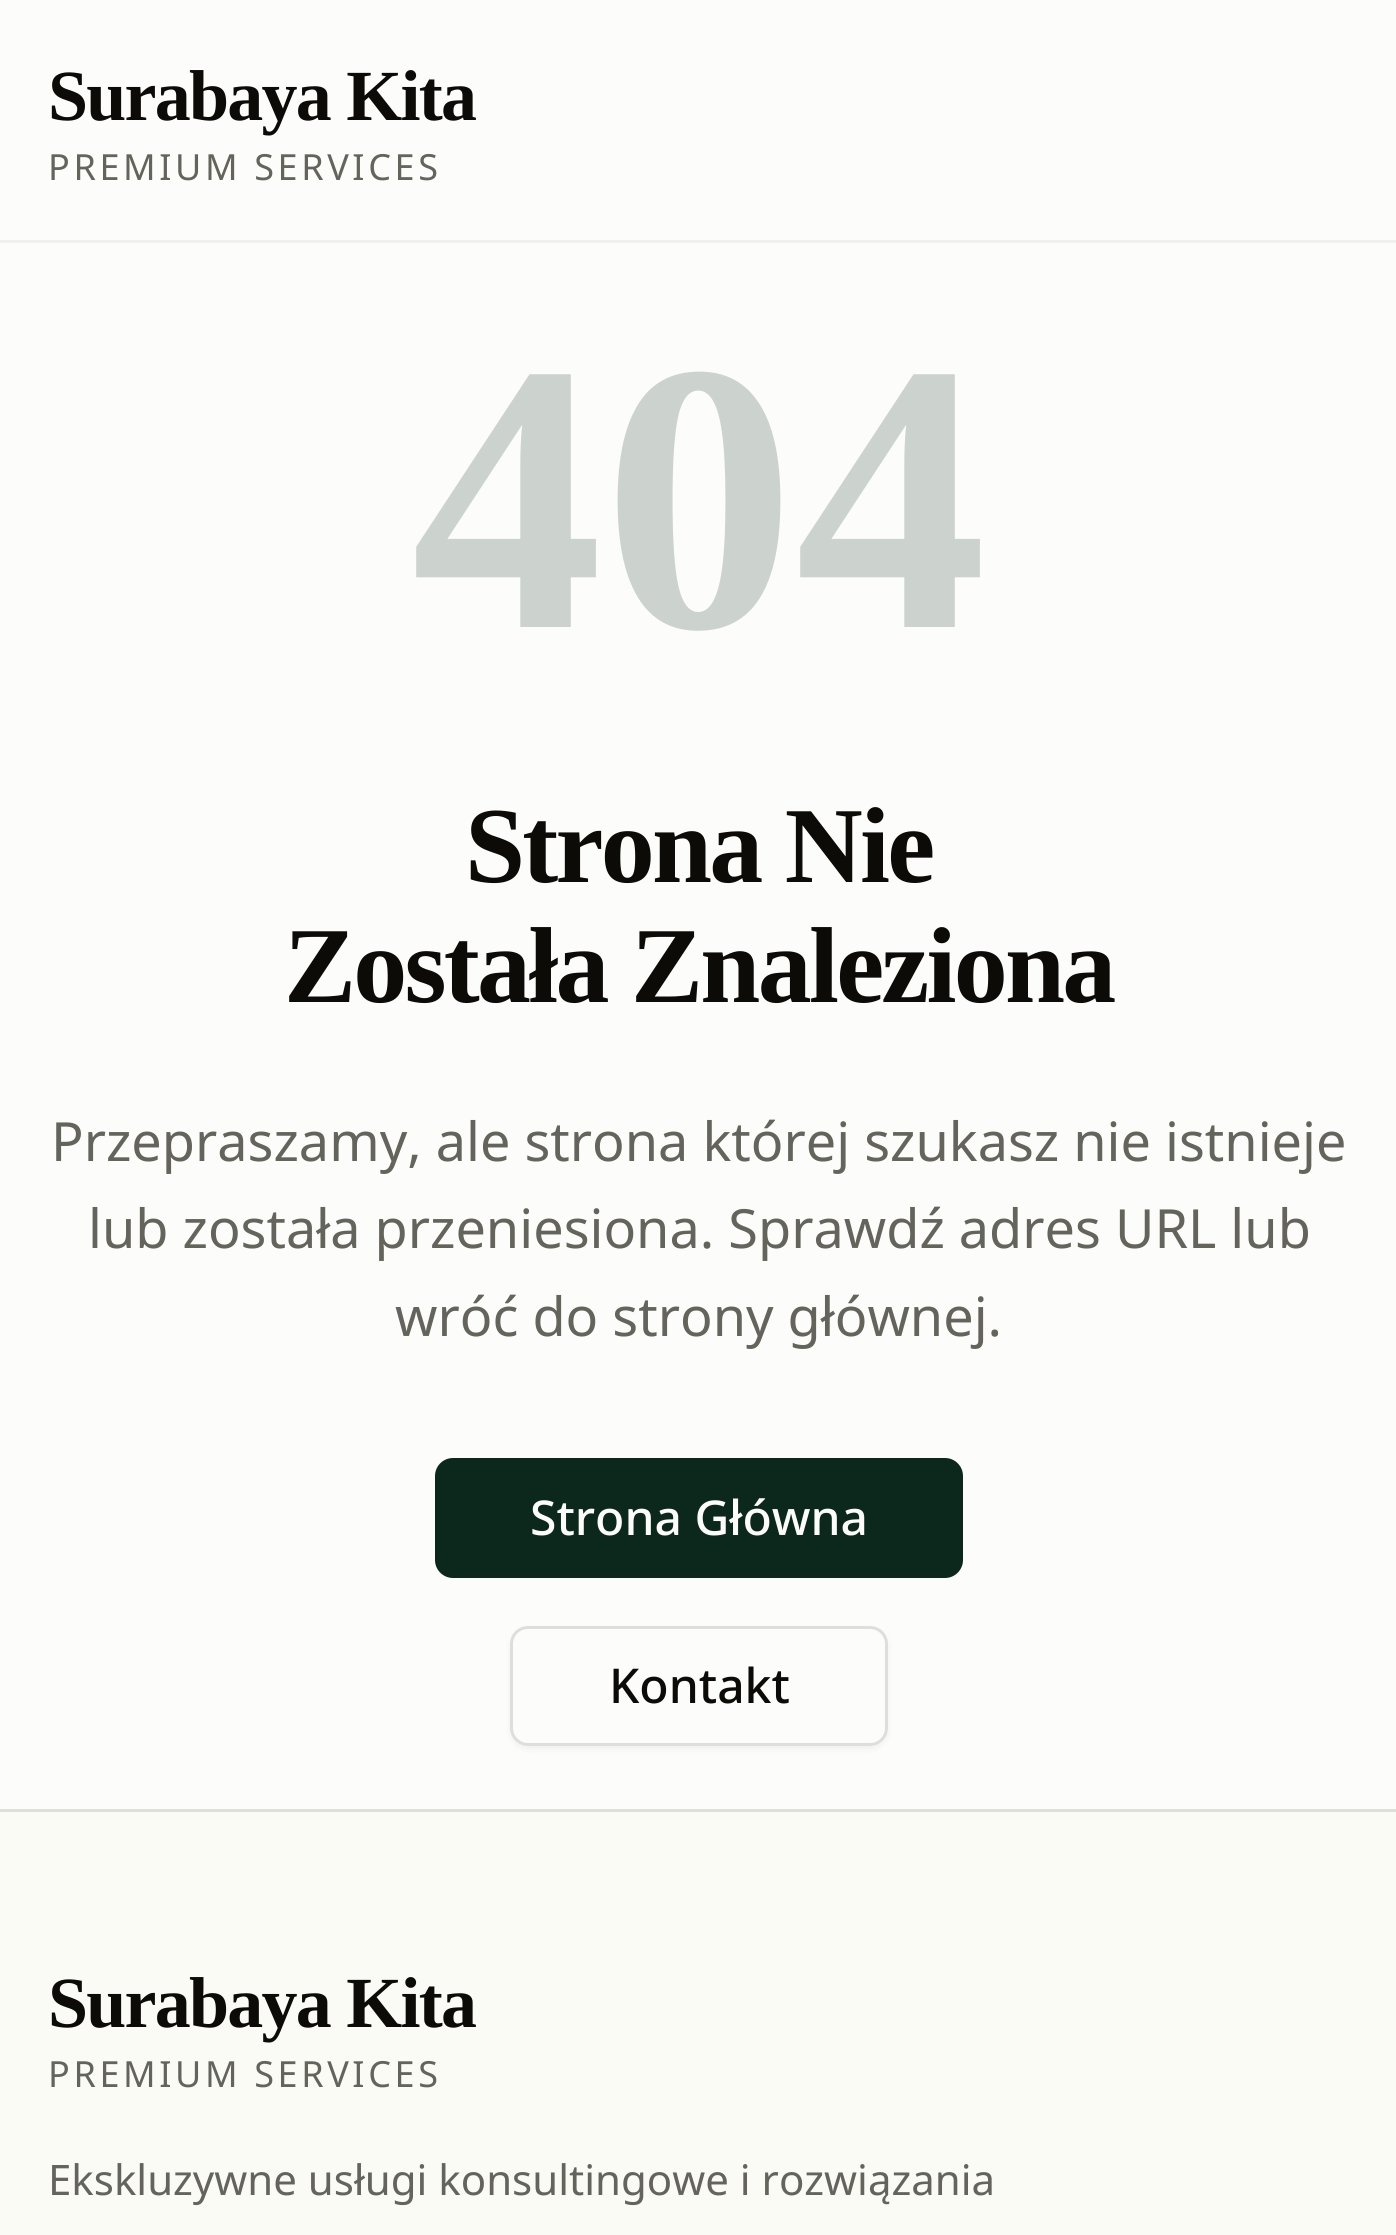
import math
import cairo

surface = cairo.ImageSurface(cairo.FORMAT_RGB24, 1396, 2235)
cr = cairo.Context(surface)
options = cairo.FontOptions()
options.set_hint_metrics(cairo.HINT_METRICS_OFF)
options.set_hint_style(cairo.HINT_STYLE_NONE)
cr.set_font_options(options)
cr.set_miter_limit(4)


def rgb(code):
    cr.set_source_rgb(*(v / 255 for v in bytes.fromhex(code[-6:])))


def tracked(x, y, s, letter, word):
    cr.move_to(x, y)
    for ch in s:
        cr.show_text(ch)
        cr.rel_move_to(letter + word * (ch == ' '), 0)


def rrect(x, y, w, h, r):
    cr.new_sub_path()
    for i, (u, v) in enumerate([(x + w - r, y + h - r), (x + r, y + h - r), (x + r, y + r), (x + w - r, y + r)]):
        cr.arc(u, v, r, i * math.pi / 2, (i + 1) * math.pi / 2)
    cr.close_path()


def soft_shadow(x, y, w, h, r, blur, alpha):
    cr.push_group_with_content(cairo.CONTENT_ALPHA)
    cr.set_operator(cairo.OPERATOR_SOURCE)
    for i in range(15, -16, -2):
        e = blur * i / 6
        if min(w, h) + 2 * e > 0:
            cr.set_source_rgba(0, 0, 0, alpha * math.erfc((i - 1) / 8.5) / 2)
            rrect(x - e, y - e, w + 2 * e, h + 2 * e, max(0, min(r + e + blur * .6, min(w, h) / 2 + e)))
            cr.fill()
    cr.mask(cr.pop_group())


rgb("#fcfcfa")
cr.paint()
rgb("#f0f0ed")
cr.rectangle(0, 240, 1396, 3)
cr.fill()
rgb("#0c281d")
rrect(435, 1458, 528, 120, 18)
cr.fill()
cr.save()
cr.set_fill_rule(cairo.FILL_RULE_EVEN_ODD)
cr.new_path()
cr.move_to(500, 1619)
cr.line_to(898, 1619)
cr.line_to(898, 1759)
cr.line_to(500, 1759)
cr.close_path()
cr.move_to(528, 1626)
cr.line_to(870, 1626)
cr.curve_to(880, 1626, 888, 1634, 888, 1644)
cr.line_to(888, 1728)
cr.curve_to(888, 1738, 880, 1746, 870, 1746)
cr.line_to(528, 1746)
cr.curve_to(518, 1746, 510, 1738, 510, 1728)
cr.line_to(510, 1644)
cr.curve_to(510, 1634, 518, 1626, 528, 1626)
cr.close_path()
cr.clip()
rgb("#000000")
soft_shadow(510, 1629, 378, 120, 18, 3, 0.05)
cr.restore()
rrect(511.5, 1627.5, 375, 117, 16.5)
rgb("#dededa")
cr.set_line_width(3)
cr.stroke()
rgb("#fbfbf6")
cr.rectangle(0, 1812, 1396, 423)
cr.fill()
rgb("#dededa")
cr.rectangle(0, 1809, 1396, 3)
cr.fill()
cr.select_font_face("Liberation Serif", cairo.FONT_SLANT_NORMAL, cairo.FONT_WEIGHT_BOLD)
cr.set_font_size(72)
rgb("#0c0b07")
tracked(48, 120, "Surabaya Kita", -1.75, 0)
cr.select_font_face("Noto Sans")
cr.set_font_size(36)
rgb("#64645d")
tracked(48, 180, "PREMIUM SERVICES", 3.6, 0)
cr.select_font_face("Liberation Serif", cairo.FONT_SLANT_NORMAL, cairo.FONT_WEIGHT_BOLD)
cr.set_font_size(384)
rgb("#ccd2ce")
cr.move_to(411, 627)
cr.show_text("404")
cr.set_font_size(108)
rgb("#0c0b07")
tracked(465, 882, "Strona Nie", -2.75, 0)
tracked(284, 1002, "Została Znaleziona", -2.75, 0)
cr.select_font_face("Noto Sans")
cr.set_font_size(54)
rgb("#64645d")
for x, y, s in [
    (51, 1161, "Przepraszamy, ale strona której szukasz nie istnieje"),
    (88, 1248, "lub została przeniesiona. Sprawdź adres URL lub"),
    (395, 1336, "wróć do strony głównej."),
]:
    cr.move_to(x, y)
    cr.show_text(s)
cr.select_font_face("Noto Sans Medium")
cr.set_font_size(48)
rgb("#fcfcfa")
cr.move_to(530, 1535)
cr.show_text("Strona Główna")
rgb("#0c0b07")
cr.move_to(609, 1703)
cr.show_text("Kontakt")
cr.select_font_face("Liberation Serif", cairo.FONT_SLANT_NORMAL, cairo.FONT_WEIGHT_BOLD)
cr.set_font_size(72)
tracked(48, 2027, "Surabaya Kita", -1.75, 0)
cr.select_font_face("Noto Sans")
cr.set_font_size(36)
rgb("#64645d")
tracked(48, 2087, "PREMIUM SERVICES", 3.6, 0)
cr.set_font_size(42)
cr.move_to(48, 2195)
cr.show_text("Ekskluzywne usługi konsultingowe i rozwiązania")
surface.write_to_png("page.png")
